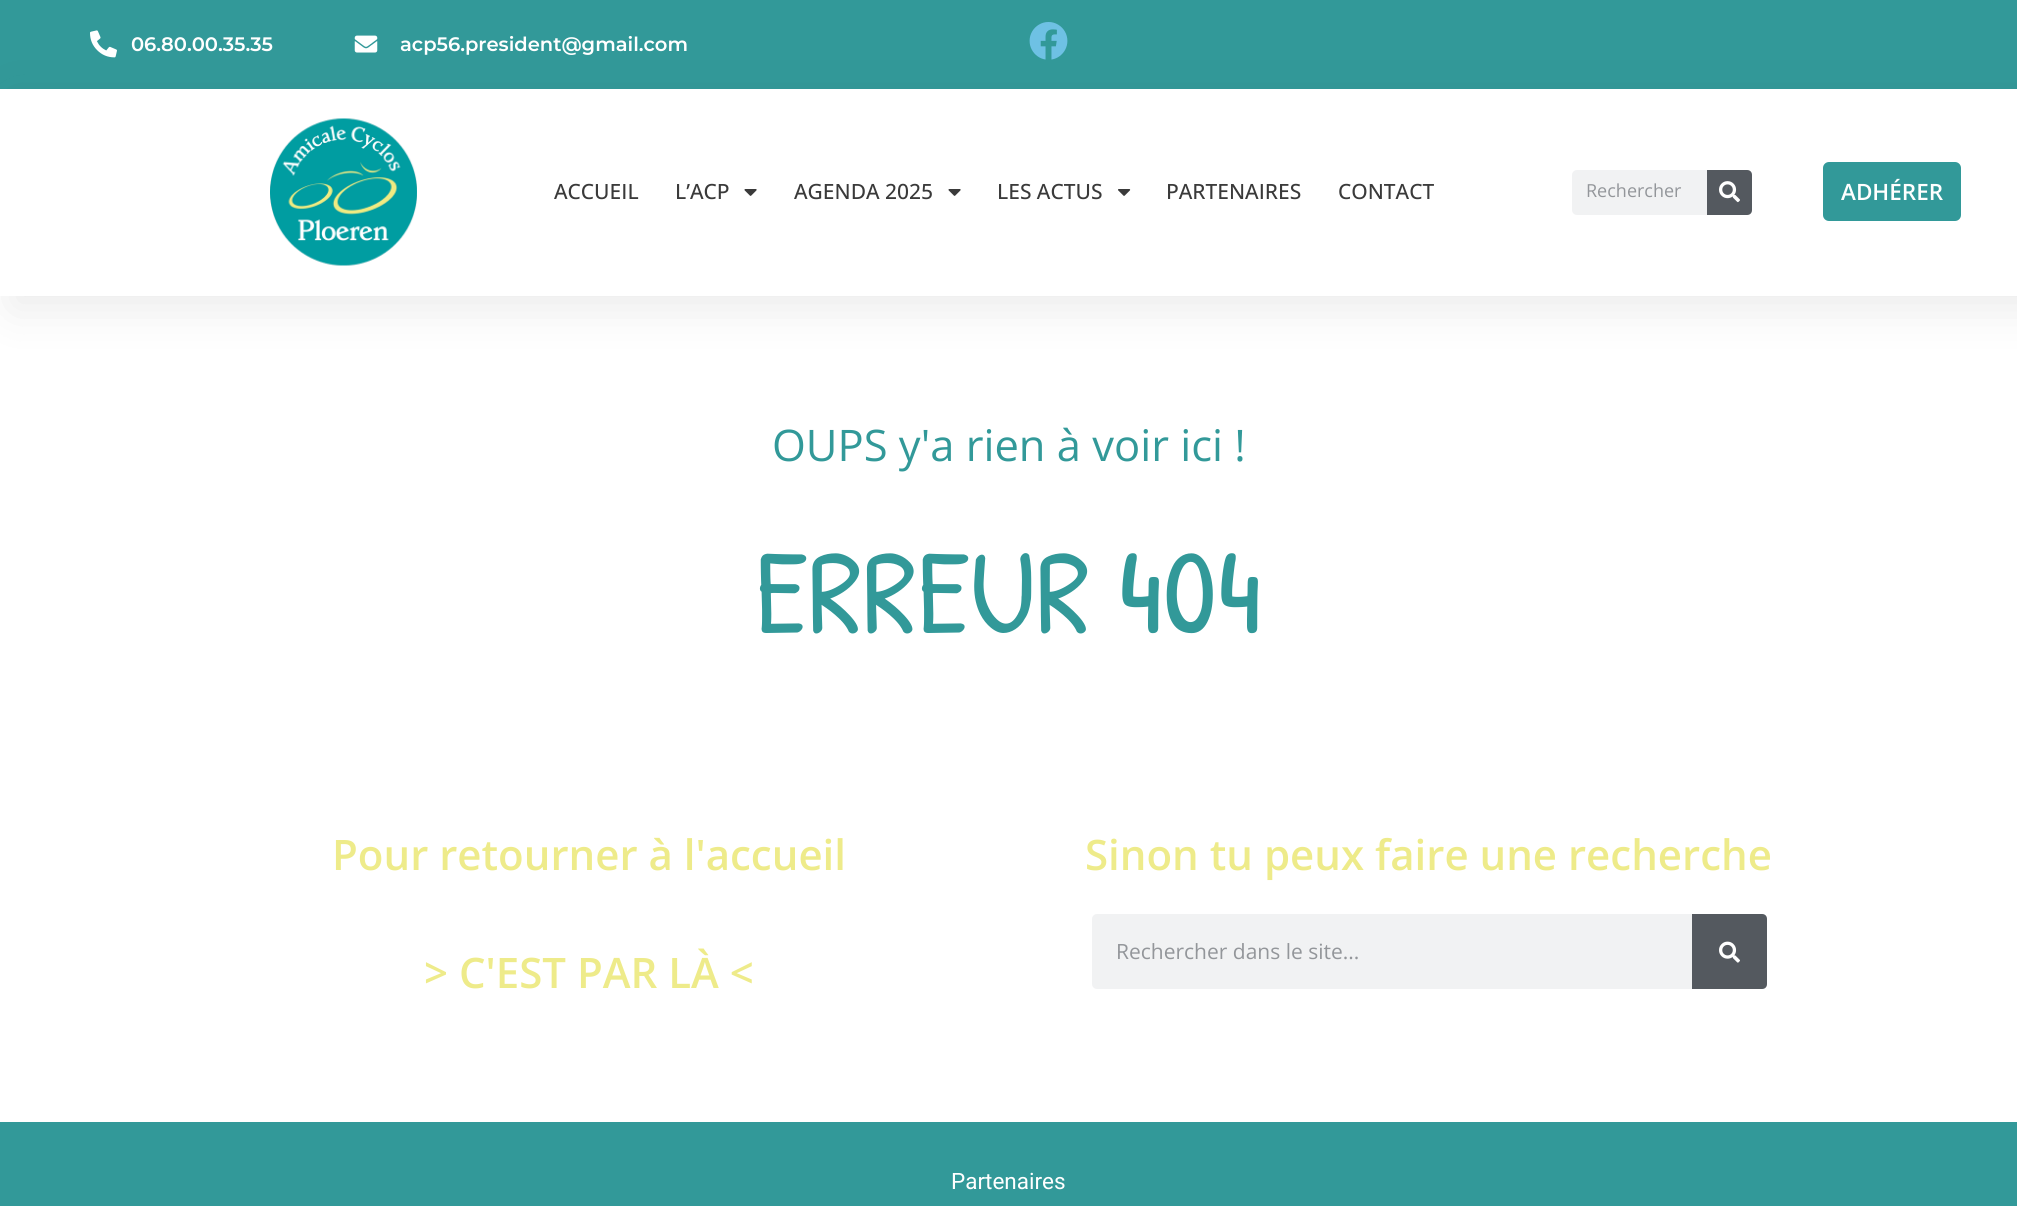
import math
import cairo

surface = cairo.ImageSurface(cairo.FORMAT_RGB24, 2017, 1206)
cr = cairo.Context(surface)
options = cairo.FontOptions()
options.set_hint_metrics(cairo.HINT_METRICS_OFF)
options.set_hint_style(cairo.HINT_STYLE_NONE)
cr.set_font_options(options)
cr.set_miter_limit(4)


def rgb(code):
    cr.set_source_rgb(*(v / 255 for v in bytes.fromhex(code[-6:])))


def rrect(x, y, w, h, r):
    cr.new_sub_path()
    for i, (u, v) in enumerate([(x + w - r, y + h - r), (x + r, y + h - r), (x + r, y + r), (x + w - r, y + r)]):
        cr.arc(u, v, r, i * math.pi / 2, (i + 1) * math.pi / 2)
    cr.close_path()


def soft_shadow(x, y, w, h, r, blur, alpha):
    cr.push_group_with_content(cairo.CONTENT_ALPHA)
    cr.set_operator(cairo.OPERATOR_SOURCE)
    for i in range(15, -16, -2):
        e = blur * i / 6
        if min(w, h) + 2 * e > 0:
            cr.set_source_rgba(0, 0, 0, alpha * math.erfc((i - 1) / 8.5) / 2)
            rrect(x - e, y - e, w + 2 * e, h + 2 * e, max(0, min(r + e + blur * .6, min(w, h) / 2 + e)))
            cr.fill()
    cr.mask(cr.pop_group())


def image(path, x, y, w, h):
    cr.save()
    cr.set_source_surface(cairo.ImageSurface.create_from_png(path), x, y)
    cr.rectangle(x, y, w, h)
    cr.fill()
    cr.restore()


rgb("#ffffff")
cr.paint()
rgb("#329999")
cr.rectangle(0, 0, 2017, 89)
cr.fill()
image("img/1.png", 90, 30, 27, 28)
image("img/2.png", 354, 35, 24, 18)
image("img/3.png", 1029, 22, 39, 38)
rgb("#2a2a2a")
soft_shadow(12, 101, 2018, 207, 0, 22.5, 0.1)
rgb("#ffffff")
cr.rectangle(0, 89, 2017, 207)
cr.fill()
image("img/4.png", 270, 118, 147, 148)
image("img/5.png", 744, 189, 13, 7)
image("img/5.png", 948, 189, 13, 7)
image("img/6.png", 1118, 189, 13, 7)
rgb("#f1f2f3")
rrect(1572, 170, 180, 45, 5)
cr.fill()
rgb("#54595f")
cr.new_path()
cr.move_to(1707, 170)
cr.line_to(1747, 170)
cr.curve_to(1750, 170, 1752, 172, 1752, 175)
cr.line_to(1752, 210)
cr.curve_to(1752, 213, 1750, 215, 1747, 215)
cr.line_to(1707, 215)
cr.close_path()
cr.fill()
image("img/7.png", 1719, 181, 21, 22)
rgb("#329999")
rrect(1823, 162, 138, 59, 6)
cr.fill()
rgb("#f1f2f3")
rrect(1092, 914, 675, 75, 5)
cr.fill()
rgb("#54595f")
cr.new_path()
cr.move_to(1692, 914)
cr.line_to(1762, 914)
cr.curve_to(1765, 914, 1767, 916, 1767, 919)
cr.line_to(1767, 984)
cr.curve_to(1767, 987, 1765, 989, 1762, 989)
cr.line_to(1692, 989)
cr.close_path()
cr.fill()
image("img/8.png", 1719, 941, 21, 22)
rgb("#329999")
cr.rectangle(0, 1122, 2017, 84)
cr.fill()
cr.select_font_face("Montserrat SemiBold")
cr.set_font_size(19.5)
rgb("#ffffff")
cr.move_to(131, 51)
cr.show_text("06.80.00.35.35")
cr.move_to(400, 51)
cr.show_text("acp56.president@gmail.com")
cr.select_font_face("Open Sans Medium")
cr.set_font_size(21)
rgb("#3a3a3a")
for x, y, s in [
    (554, 199, "ACCUEIL"),
    (675, 199, "L’ACP"),
    (794, 199, "AGENDA 2025"),
    (997, 199, "LES ACTUS"),
    (1166, 199, "PARTENAIRES"),
    (1338, 199, "CONTACT"),
]:
    cr.move_to(x, y)
    cr.show_text(s)
cr.select_font_face("Open Sans")
cr.set_font_size(18)
rgb("#93969a")
cr.move_to(1586, 197)
cr.show_text("Rechercher")
cr.select_font_face("Open Sans SemiBold")
cr.set_font_size(22.5)
rgb("#ffffff")
cr.move_to(1841, 200)
cr.show_text("ADHÉRER")
cr.select_font_face("Open Sans")
cr.set_font_size(43.5)
rgb("#329999")
cr.move_to(772, 461)
cr.show_text("OUPS y'a rien à voir ici !")
cr.select_font_face("Patrick Hand")
cr.set_font_size(120)
cr.move_to(755, 633)
cr.show_text("ERREUR 404")
cr.select_font_face("Open Sans SemiBold")
cr.set_font_size(42)
rgb("#eeeb8a")
for x, y, s in [
    (332, 870, "Pour retourner à l'accueil"),
    (424, 988, "> C'EST PAR LÀ <"),
    (1085, 870, "Sinon tu peux faire une recherche"),
]:
    cr.move_to(x, y)
    cr.show_text(s)
cr.select_font_face("Open Sans")
cr.set_font_size(21)
rgb("#93969a")
cr.move_to(1116, 959)
cr.show_text("Rechercher dans le site...")
cr.select_font_face("Roboto")
cr.set_font_size(22.5)
rgb("#ffffff")
cr.move_to(951, 1189)
cr.show_text("Partenaires")
surface.write_to_png("page.png")
